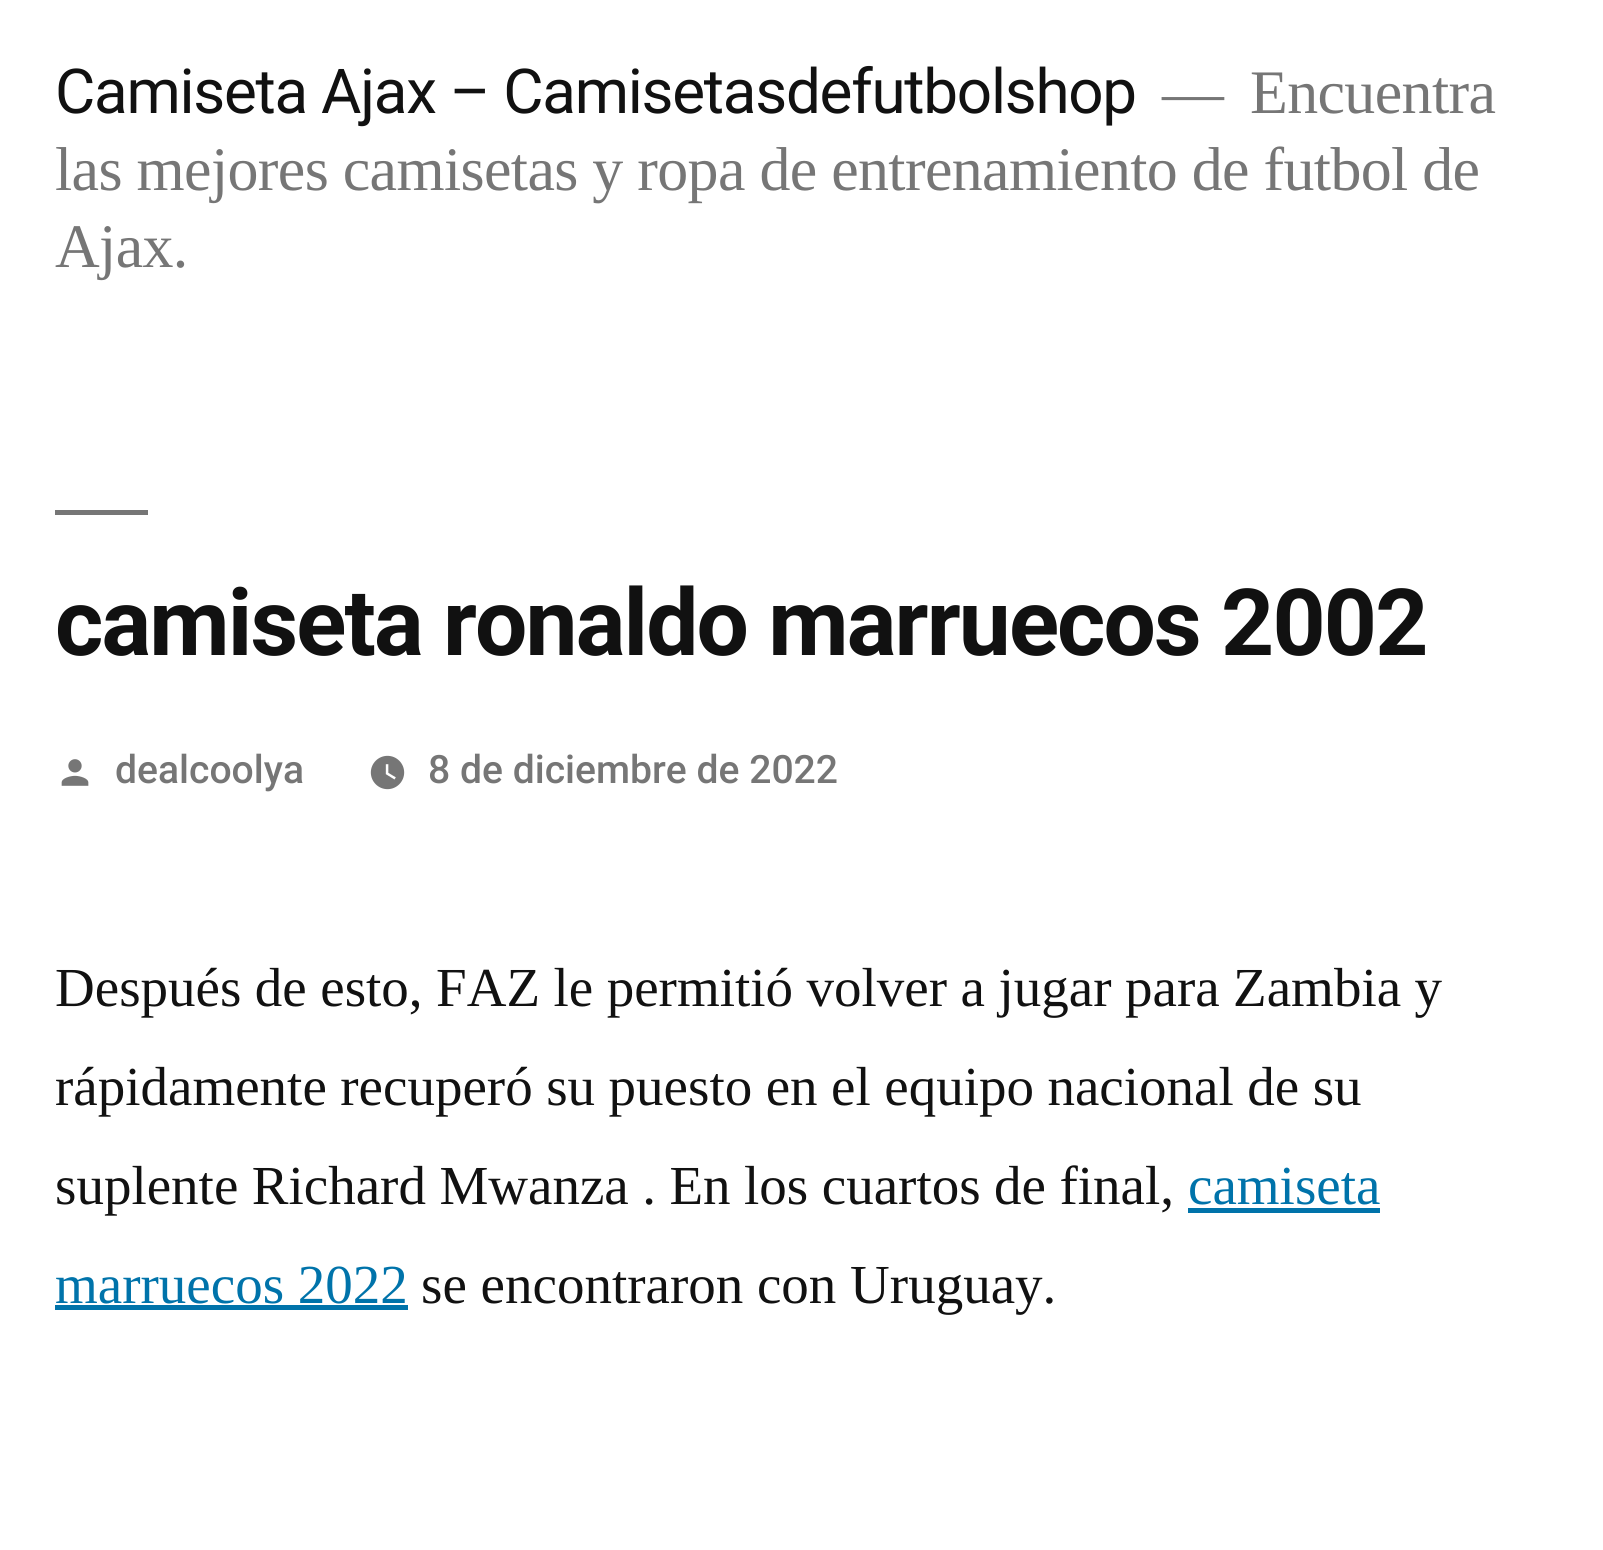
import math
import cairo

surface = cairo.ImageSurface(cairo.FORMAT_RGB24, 1603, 1550)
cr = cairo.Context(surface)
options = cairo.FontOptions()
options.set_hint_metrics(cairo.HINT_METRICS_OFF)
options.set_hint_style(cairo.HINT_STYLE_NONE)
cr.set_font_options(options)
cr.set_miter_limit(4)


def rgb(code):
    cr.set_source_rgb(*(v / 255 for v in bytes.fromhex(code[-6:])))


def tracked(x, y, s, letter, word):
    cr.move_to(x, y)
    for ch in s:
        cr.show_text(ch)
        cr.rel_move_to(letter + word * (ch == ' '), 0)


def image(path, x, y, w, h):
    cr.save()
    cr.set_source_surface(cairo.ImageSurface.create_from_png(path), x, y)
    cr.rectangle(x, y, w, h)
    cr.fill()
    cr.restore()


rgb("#ffffff")
cr.paint()
rgb("#767676")
cr.rectangle(55, 510, 93, 5)
cr.fill()
image("img/1.png", 61, 759, 28, 27)
image("img/2.png", 370, 755, 35, 35)
rgb("#0073aa")
cr.rectangle(1188, 1208, 192, 5)
cr.fill()
cr.rectangle(55, 1305, 353, 5)
cr.fill()
cr.select_font_face("Roboto")
cr.set_font_size(61.9)
rgb("#111111")
tracked(55, 113, "Camiseta Ajax – Camisetasdefutbolshop", -1.25, 0)
cr.select_font_face("Liberation Serif")
rgb("#767676")
tracked(1162, 113, "—", -0.62, 0)
tracked(1250, 113, "Encuentra", -0.62, 0)
tracked(55, 190, "las mejores camisetas y ropa de entrenamiento de futbol de", -0.62, -0.25)
tracked(55, 267, "Ajax.", -0.62, 0)
cr.select_font_face("Roboto", cairo.FONT_SLANT_NORMAL, cairo.FONT_WEIGHT_BOLD)
cr.set_font_size(92.75)
rgb("#111111")
tracked(55, 655, "camiseta ronaldo marruecos 2002", -1.85, 0)
cr.select_font_face("Roboto Medium")
cr.set_font_size(39.1)
rgb("#767676")
cr.move_to(115, 783)
cr.show_text("dealcoolya")
cr.move_to(428, 783)
cr.show_text("8 de diciembre de 2022")
cr.select_font_face("Liberation Serif")
cr.set_font_size(55)
rgb("#111111")
for x, y, s in [
    (55, 1006, "Después de esto, FAZ le permitió volver a jugar para Zambia y"),
    (55, 1105, "rápidamente recuperó su puesto en el equipo nacional de su"),
    (55, 1204, "suplente Richard Mwanza . En los cuartos de final,"),
]:
    tracked(x, y, s, 0, -0.25)
rgb("#0073aa")
cr.move_to(1188, 1204)
cr.show_text("camiseta")
cr.move_to(55, 1303)
cr.show_text("marruecos 2022")
rgb("#111111")
cr.move_to(421, 1303)
cr.show_text("se encontraron con Uruguay.")
surface.write_to_png("page.png")
